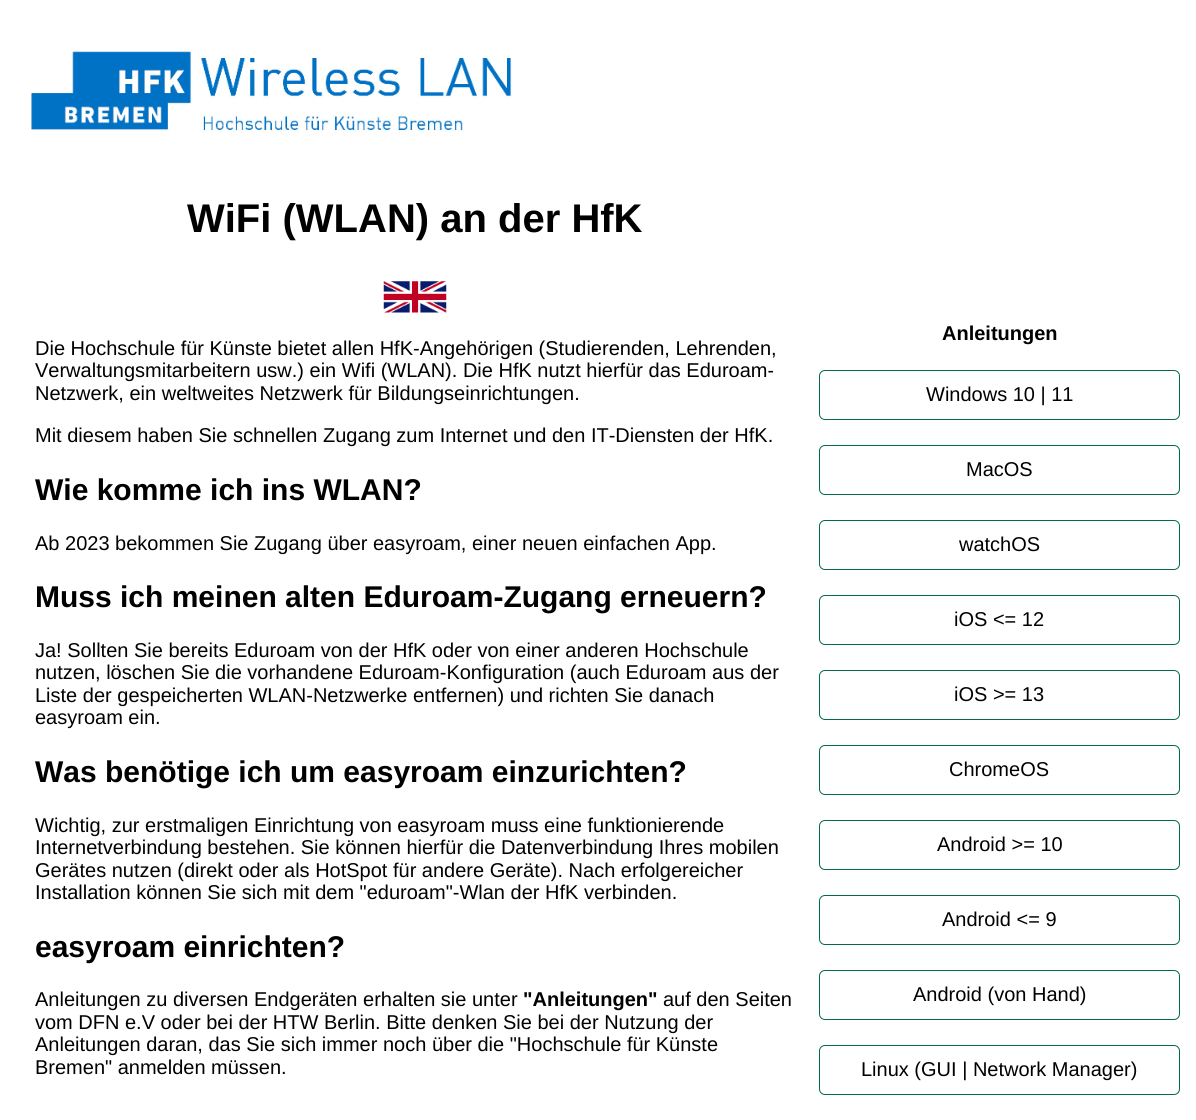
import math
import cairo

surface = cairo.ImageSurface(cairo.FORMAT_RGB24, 1196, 1120)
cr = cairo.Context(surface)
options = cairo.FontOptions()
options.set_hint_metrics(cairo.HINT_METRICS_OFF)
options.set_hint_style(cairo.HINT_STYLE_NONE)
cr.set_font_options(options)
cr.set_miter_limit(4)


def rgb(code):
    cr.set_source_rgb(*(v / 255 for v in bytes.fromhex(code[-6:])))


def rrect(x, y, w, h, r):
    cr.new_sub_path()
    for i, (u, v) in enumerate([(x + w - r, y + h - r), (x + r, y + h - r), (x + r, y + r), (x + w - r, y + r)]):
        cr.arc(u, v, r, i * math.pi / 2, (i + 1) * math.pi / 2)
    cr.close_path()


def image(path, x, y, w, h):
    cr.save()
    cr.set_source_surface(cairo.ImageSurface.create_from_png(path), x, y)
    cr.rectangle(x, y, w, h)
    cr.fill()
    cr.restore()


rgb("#ffffff")
cr.paint()
image("img/1.png", 31, 51, 481, 81)
image("img/2.png", 383, 281, 64, 32)
rrect(819.5, 370.5, 360, 49, 5.5)
rgb("#026b4c")
cr.set_line_width(1)
cr.stroke()
rrect(819.5, 445.5, 360, 49, 5.5)
cr.stroke()
rrect(819.5, 520.5, 360, 49, 5.5)
cr.stroke()
rrect(819.5, 595.5, 360, 49, 5.5)
cr.stroke()
rrect(819.5, 670.5, 360, 49, 5.5)
cr.stroke()
rrect(819.5, 745.5, 360, 49, 5.5)
cr.stroke()
rrect(819.5, 820.5, 360, 49, 5.5)
cr.stroke()
rrect(819.5, 895.5, 360, 49, 5.5)
cr.stroke()
rrect(819.5, 970.5, 360, 49, 5.5)
cr.stroke()
rrect(819.5, 1045.5, 360, 49, 5.5)
cr.stroke()
cr.select_font_face("Liberation Sans", cairo.FONT_SLANT_NORMAL, cairo.FONT_WEIGHT_BOLD)
cr.set_font_size(40)
rgb("#000000")
cr.move_to(187, 232)
cr.show_text("WiFi (WLAN) an der HfK")
cr.select_font_face("Liberation Sans")
cr.set_font_size(20)
for x, y, s in [
    (35, 355, "Die Hochschule für Künste bietet allen HfK-Angehörigen (Studierenden, Lehrenden,"),
    (35, 377, "Verwaltungsmitarbeitern usw.) ein Wifi (WLAN). Die HfK nutzt hierfür das Eduroam-"),
    (35, 400, "Netzwerk, ein weltweites Netzwerk für Bildungseinrichtungen."),
    (35, 442, "Mit diesem haben Sie schnellen Zugang zum Internet und den IT-Diensten der HfK."),
]:
    cr.move_to(x, y)
    cr.show_text(s)
cr.select_font_face("Liberation Sans", cairo.FONT_SLANT_NORMAL, cairo.FONT_WEIGHT_BOLD)
cr.set_font_size(30)
cr.move_to(35, 500)
cr.show_text("Wie komme ich ins WLAN?")
cr.select_font_face("Liberation Sans")
cr.set_font_size(20)
cr.move_to(35, 550)
cr.show_text("Ab 2023 bekommen Sie Zugang über easyroam, einer neuen einfachen App.")
cr.select_font_face("Liberation Sans", cairo.FONT_SLANT_NORMAL, cairo.FONT_WEIGHT_BOLD)
cr.set_font_size(30)
cr.move_to(35, 607)
cr.show_text("Muss ich meinen alten Eduroam-Zugang erneuern?")
cr.select_font_face("Liberation Sans")
cr.set_font_size(20)
for x, y, s in [
    (35, 657, "Ja! Sollten Sie bereits Eduroam von der HfK oder von einer anderen Hochschule"),
    (35, 679, "nutzen, löschen Sie die vorhandene Eduroam-Konfiguration (auch Eduroam aus der"),
    (35, 702, "Liste der gespeicherten WLAN-Netzwerke entfernen) und richten Sie danach"),
    (35, 724, "easyroam ein."),
]:
    cr.move_to(x, y)
    cr.show_text(s)
cr.select_font_face("Liberation Sans", cairo.FONT_SLANT_NORMAL, cairo.FONT_WEIGHT_BOLD)
cr.set_font_size(30)
cr.move_to(35, 782)
cr.show_text("Was benötige ich um easyroam einzurichten?")
cr.select_font_face("Liberation Sans")
cr.set_font_size(20)
for x, y, s in [
    (35, 832, "Wichtig, zur erstmaligen Einrichtung von easyroam muss eine funktionierende"),
    (35, 854, "Internetverbindung bestehen. Sie können hierfür die Datenverbindung Ihres mobilen"),
    (35, 877, "Gerätes nutzen (direkt oder als HotSpot für andere Geräte). Nach erfolgereicher"),
    (35, 899, "Installation können Sie sich mit dem \"eduroam\"-Wlan der HfK verbinden."),
]:
    cr.move_to(x, y)
    cr.show_text(s)
cr.select_font_face("Liberation Sans", cairo.FONT_SLANT_NORMAL, cairo.FONT_WEIGHT_BOLD)
cr.set_font_size(30)
cr.move_to(35, 957)
cr.show_text("easyroam einrichten?")
cr.select_font_face("Liberation Sans")
cr.set_font_size(20)
cr.move_to(35, 1006)
cr.show_text("Anleitungen zu diversen Endgeräten erhalten sie unter")
cr.select_font_face("Liberation Sans", cairo.FONT_SLANT_NORMAL, cairo.FONT_WEIGHT_BOLD)
cr.move_to(523, 1006)
cr.show_text("\"Anleitungen\"")
cr.select_font_face("Liberation Sans")
for x, y, s in [
    (663, 1006, "auf den Seiten"),
    (35, 1029, "vom DFN e.V oder bei der HTW Berlin. Bitte denken Sie bei der Nutzung der"),
    (35, 1051, "Anleitungen daran, das Sie sich immer noch über die \"Hochschule für Künste"),
    (35, 1074, "Bremen\" anmelden müssen."),
]:
    cr.move_to(x, y)
    cr.show_text(s)
cr.select_font_face("Liberation Sans", cairo.FONT_SLANT_NORMAL, cairo.FONT_WEIGHT_BOLD)
cr.move_to(942, 340)
cr.show_text("Anleitungen")
cr.select_font_face("Liberation Sans")
for x, y, s in [
    (926, 401, "Windows 10 | 11"),
    (966, 476, "MacOS"),
    (959, 551, "watchOS"),
    (954, 626, "iOS <= 12"),
    (954, 701, "iOS >= 13"),
    (949, 776, "ChromeOS"),
    (937, 851, "Android >= 10"),
    (942, 926, "Android <= 9"),
    (913, 1001, "Android (von Hand)"),
    (861, 1076, "Linux (GUI | Network Manager)"),
]:
    cr.move_to(x, y)
    cr.show_text(s)
surface.write_to_png("page.png")
